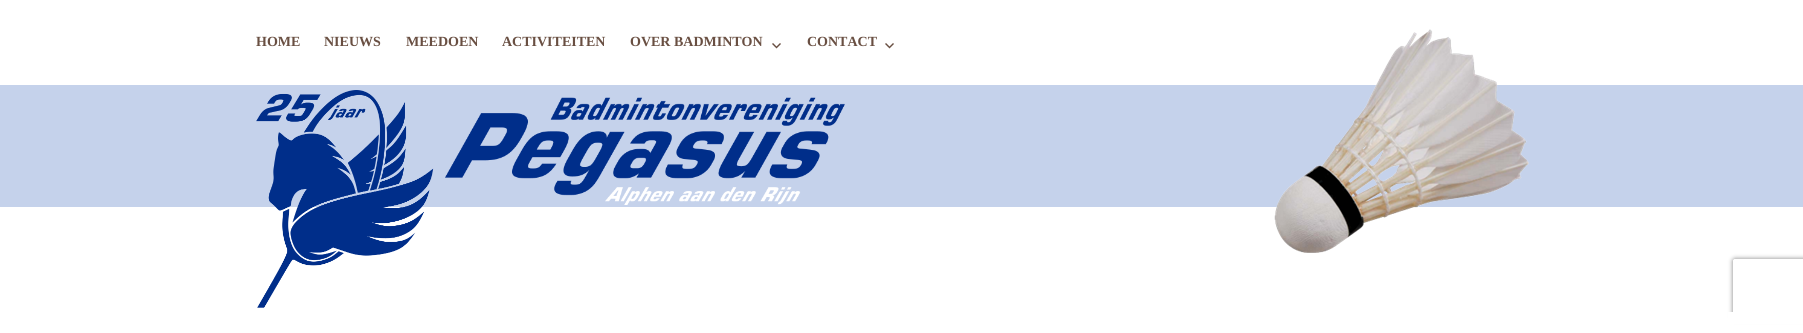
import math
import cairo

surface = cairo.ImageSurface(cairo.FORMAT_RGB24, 1803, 333)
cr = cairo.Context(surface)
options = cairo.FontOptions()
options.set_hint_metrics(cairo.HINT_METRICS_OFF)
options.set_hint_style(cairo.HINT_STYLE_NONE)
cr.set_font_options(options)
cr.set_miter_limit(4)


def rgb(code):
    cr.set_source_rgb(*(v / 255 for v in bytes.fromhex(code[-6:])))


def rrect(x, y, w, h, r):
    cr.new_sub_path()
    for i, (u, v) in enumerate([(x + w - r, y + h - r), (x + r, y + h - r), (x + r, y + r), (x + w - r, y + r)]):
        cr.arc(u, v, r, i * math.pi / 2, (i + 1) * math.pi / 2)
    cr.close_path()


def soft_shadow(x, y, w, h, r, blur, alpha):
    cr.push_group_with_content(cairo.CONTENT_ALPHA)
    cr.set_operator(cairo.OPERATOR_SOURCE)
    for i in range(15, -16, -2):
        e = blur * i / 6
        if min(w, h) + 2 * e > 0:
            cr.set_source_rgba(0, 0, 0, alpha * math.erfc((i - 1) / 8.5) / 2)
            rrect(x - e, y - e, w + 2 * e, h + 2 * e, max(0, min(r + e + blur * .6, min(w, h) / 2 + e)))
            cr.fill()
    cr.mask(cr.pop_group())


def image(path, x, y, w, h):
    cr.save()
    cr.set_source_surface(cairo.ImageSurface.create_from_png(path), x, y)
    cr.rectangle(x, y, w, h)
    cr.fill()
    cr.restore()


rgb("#ffffff")
cr.paint()
rgb("#c5d2eb")
cr.rectangle(0, 85, 1803, 122)
cr.fill()
image("img/1.png", 256, 90, 178, 218)
image("img/2.png", 445, 97, 400, 108)
image("img/3.png", 1274, 29, 255, 224)
image("img/4.png", 772, 43, 9, 6)
image("img/4.png", 885, 43, 9, 6)
cr.save()
cr.set_fill_rule(cairo.FILL_RULE_EVEN_ODD)
cr.new_path()
cr.move_to(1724, 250)
cr.line_to(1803, 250)
cr.line_to(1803, 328)
cr.line_to(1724, 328)
cr.close_path()
cr.move_to(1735, 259)
cr.line_to(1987, 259)
cr.curve_to(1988, 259, 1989, 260, 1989, 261)
cr.line_to(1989, 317)
cr.curve_to(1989, 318, 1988, 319, 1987, 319)
cr.line_to(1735, 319)
cr.curve_to(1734, 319, 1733, 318, 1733, 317)
cr.line_to(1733, 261)
cr.curve_to(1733, 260, 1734, 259, 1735, 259)
cr.close_path()
cr.clip()
rgb("#808080")
soft_shadow(1733, 259, 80, 60, 2, 2.5, 1)
cr.restore()
rgb("#ffffff")
cr.rectangle(1728, 312, 75, 12)
cr.fill()
cr.select_font_face("Liberation Serif", cairo.FONT_SLANT_NORMAL, cairo.FONT_WEIGHT_BOLD)
cr.set_font_size(14)
rgb("#694f42")
for x, y, s in [
    (256, 46, "HOME"),
    (324, 46, "NIEUWS"),
    (406, 46, "MEEDOEN"),
    (502, 46, "ACTIVITEITEN"),
    (630, 46, "OVER BADMINTON"),
    (807, 46, "CONTACT"),
]:
    cr.move_to(x, y)
    cr.show_text(s)
surface.write_to_png("page.png")
